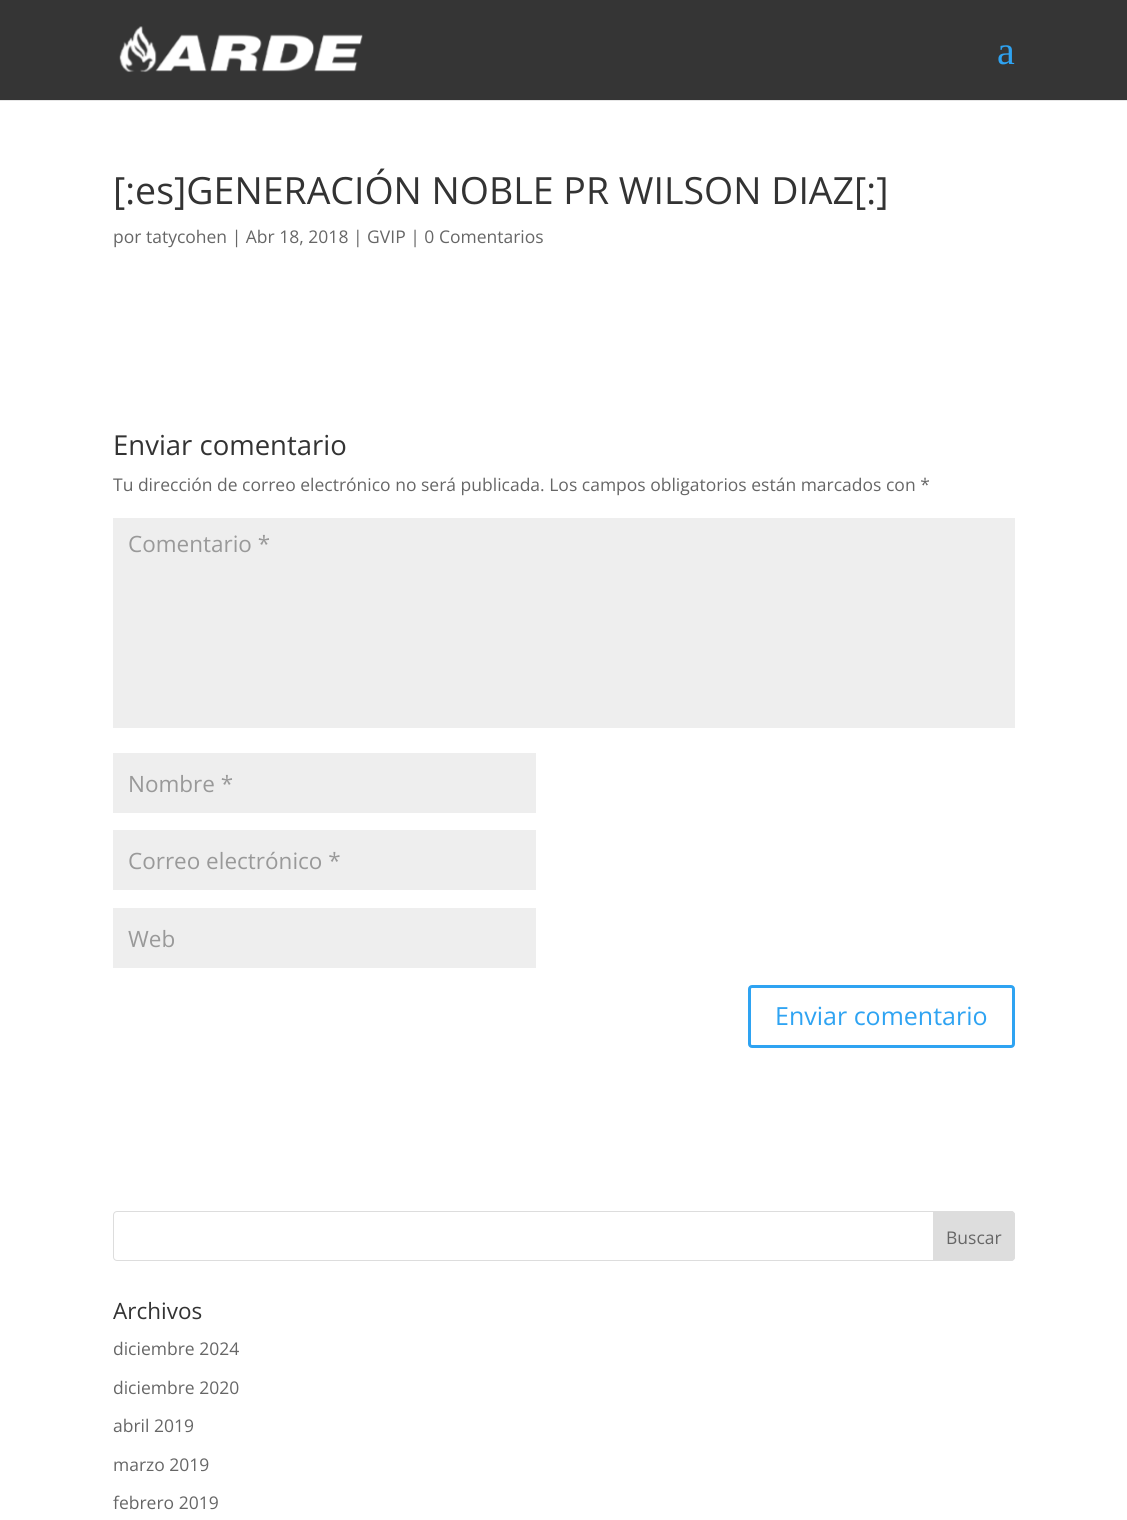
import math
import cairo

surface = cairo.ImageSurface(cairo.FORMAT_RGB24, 1127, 1520)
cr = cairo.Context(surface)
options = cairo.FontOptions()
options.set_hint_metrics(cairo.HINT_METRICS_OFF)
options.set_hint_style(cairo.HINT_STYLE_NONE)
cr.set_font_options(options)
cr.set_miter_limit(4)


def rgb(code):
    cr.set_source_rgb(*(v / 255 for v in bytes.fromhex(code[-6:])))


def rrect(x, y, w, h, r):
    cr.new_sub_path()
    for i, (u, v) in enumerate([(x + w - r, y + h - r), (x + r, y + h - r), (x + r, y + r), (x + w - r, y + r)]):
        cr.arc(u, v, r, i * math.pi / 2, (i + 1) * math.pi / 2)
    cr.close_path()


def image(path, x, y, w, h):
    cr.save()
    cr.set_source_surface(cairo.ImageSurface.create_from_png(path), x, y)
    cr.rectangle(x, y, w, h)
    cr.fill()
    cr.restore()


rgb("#ffffff")
cr.paint()
rgb("#e6e6e6")
cr.new_path()
cr.move_to(0, 100)
cr.line_to(0, 101)
cr.line_to(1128, 101)
cr.line_to(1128, 1)
cr.line_to(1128, 100)
cr.close_path()
cr.fill()
rgb("#353535")
cr.rectangle(0, 0, 1127, 100)
cr.fill()
image("img/1.png", 119, 26, 244, 47)
for x, y, w, h, color in [
    (113, 518, 902, 210, "#eeeeee"),
    (113, 753, 423, 60, "#eeeeee"),
    (113, 830, 423, 60, "#eeeeee"),
    (113, 908, 423, 60, "#eeeeee"),
]:
    rgb(color)
    cr.rectangle(x, y, w, h)
    cr.fill()
rrect(749.5, 986.5, 264, 60, 2.5)
rgb("#2ea3f2")
cr.set_line_width(3)
cr.stroke()
rrect(113.5, 1211.5, 901, 49, 3.5)
rgb("#dddddd")
cr.set_line_width(1)
cr.stroke()
cr.new_path()
cr.move_to(933.5, 1211.5)
cr.line_to(1011, 1211.5)
cr.curve_to(1013, 1211.5, 1014.5, 1213, 1014.5, 1215)
cr.line_to(1014.5, 1257)
cr.curve_to(1014.5, 1259, 1013, 1260.5, 1011, 1260.5)
cr.line_to(933.5, 1260.5)
cr.close_path()
cr.fill_preserve()
cr.stroke()
cr.select_font_face("Liberation Serif")
cr.set_font_size(40)
rgb("#2ea3f2")
cr.move_to(997, 64)
cr.show_text("a")
cr.select_font_face("Open Sans")
cr.set_font_size(37.5)
rgb("#333333")
cr.move_to(113, 204)
cr.show_text("[:es]GENERACIÓN NOBLE PR WILSON DIAZ[:]")
cr.set_font_size(17.5)
rgb("#666666")
cr.move_to(113, 243)
cr.show_text("por tatycohen | Abr 18, 2018 | GVIP | 0 Comentarios")
cr.set_font_size(27.5)
rgb("#333333")
cr.move_to(113, 455)
cr.show_text("Enviar comentario")
cr.set_font_size(17.5)
rgb("#666666")
cr.move_to(113, 491)
cr.show_text("Tu dirección de correo electrónico no será publicada. Los campos obligatorios están marcados con *")
cr.set_font_size(22.5)
rgb("#999999")
for x, y, s in [
    (128, 552, "Comentario *"),
    (128, 792, "Nombre *"),
    (128, 869, "Correo electrónico *"),
    (128, 947, "Web"),
]:
    cr.move_to(x, y)
    cr.show_text(s)
cr.set_font_size(25)
rgb("#2ea3f2")
cr.move_to(775, 1025)
cr.show_text("Enviar comentario")
cr.set_font_size(17.5)
rgb("#666666")
cr.move_to(946, 1244)
cr.show_text("Buscar")
cr.set_font_size(22.5)
rgb("#333333")
cr.move_to(113, 1319)
cr.show_text("Archivos")
cr.set_font_size(17.5)
rgb("#666666")
for x, y, s in [
    (113, 1355, "diciembre 2024"),
    (113, 1394, "diciembre 2020"),
    (113, 1432, "abril 2019"),
    (113, 1471, "marzo 2019"),
    (113, 1509, "febrero 2019"),
]:
    cr.move_to(x, y)
    cr.show_text(s)
surface.write_to_png("page.png")
